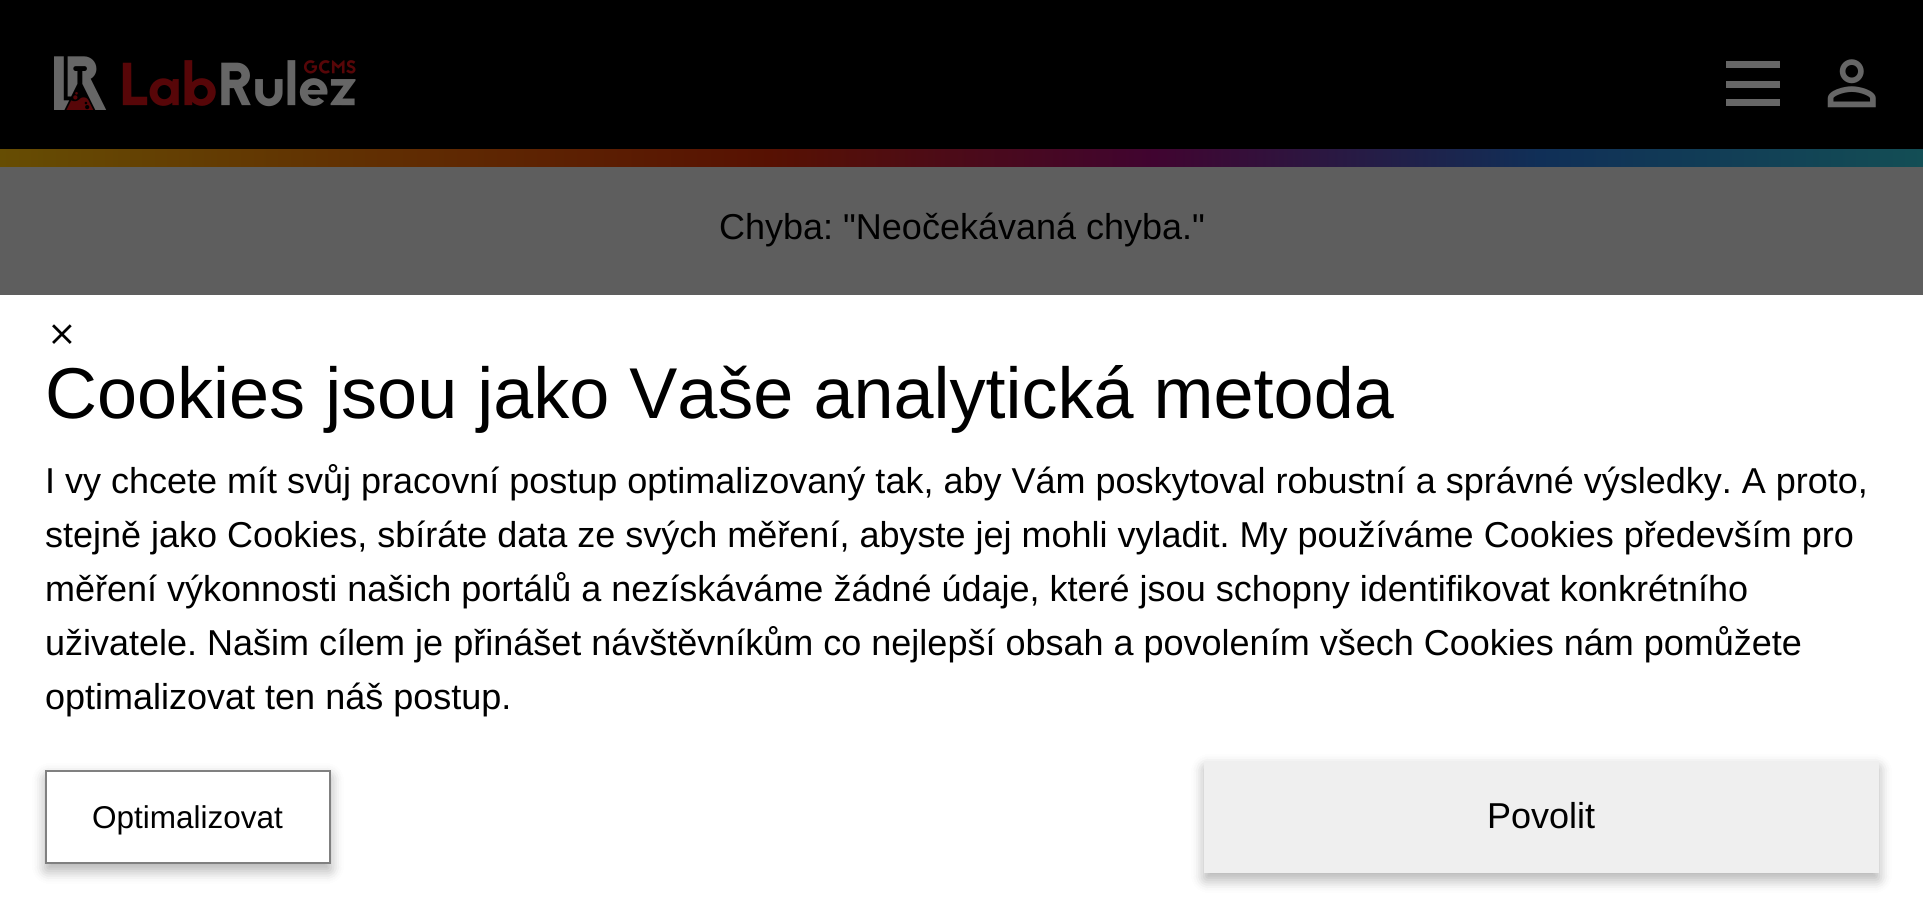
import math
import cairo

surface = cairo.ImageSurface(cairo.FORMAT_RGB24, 1923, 917)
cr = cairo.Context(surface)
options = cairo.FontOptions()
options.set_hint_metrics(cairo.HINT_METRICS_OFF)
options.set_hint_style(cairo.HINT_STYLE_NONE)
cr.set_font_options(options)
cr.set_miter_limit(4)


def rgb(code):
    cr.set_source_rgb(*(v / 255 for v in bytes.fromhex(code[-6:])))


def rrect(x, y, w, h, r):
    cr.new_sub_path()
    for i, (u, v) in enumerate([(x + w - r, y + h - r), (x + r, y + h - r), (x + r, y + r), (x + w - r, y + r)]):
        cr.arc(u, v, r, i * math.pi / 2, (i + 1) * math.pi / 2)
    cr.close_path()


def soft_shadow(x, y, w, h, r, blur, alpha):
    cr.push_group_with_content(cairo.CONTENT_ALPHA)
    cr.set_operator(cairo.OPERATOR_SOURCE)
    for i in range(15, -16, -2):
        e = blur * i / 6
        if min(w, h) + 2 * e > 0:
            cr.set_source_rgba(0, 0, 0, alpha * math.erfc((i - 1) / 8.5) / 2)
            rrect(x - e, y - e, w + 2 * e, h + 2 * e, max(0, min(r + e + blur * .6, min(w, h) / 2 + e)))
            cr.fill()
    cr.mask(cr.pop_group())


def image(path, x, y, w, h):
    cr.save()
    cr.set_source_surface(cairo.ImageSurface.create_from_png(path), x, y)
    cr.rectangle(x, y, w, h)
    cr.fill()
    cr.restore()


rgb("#5e5e5e")
cr.paint()
gradient = cairo.LinearGradient(0, 167, 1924, 166)
gradient.add_color_stop_rgba(0, 0.4, 0.302, 0.012, 1)
gradient.add_color_stop_rgba(0.2, 0.38, 0.18, 0.008, 1)
gradient.add_color_stop_rgba(0.4, 0.341, 0.067, 0.008, 1)
gradient.add_color_stop_rgba(0.6, 0.251, 0.016, 0.188, 1)
gradient.add_color_stop_rgba(0.8, 0.063, 0.184, 0.341, 1)
gradient.add_color_stop_rgba(1, 0.075, 0.306, 0.333, 1)
cr.set_source(gradient)
cr.rectangle(0, 149, 1923, 18)
cr.fill()
rgb("#000000")
cr.rectangle(0, 0, 1923, 149)
cr.fill()
image("img/1.png", 54, 56, 302, 54)
for x, y, w, h, color in [
    (1726, 61, 54, 7, "#666666"),
    (1726, 81, 54, 7, "#666666"),
    (1726, 99, 54, 7, "#666666"),
]:
    rgb(color)
    cr.rectangle(x, y, w, h)
    cr.fill()
image("img/2.png", 1827, 59, 49, 49)
rgb("#ffffff")
cr.rectangle(0, 295, 1923, 622)
cr.fill()
image("img/3.png", 52, 324, 20, 20)
rgb("#000000")
soft_shadow(45, 776, 286, 95, 0, 7, 0.16)
soft_shadow(45, 776, 286, 95, 0, 7, 0.16)
rgb("#ffffff")
cr.rectangle(46, 771, 284, 92)
cr.fill_preserve()
rgb("#808080")
cr.stroke()
rgb("#000000")
soft_shadow(1204, 767, 675, 113, 0, 7, 0.16)
soft_shadow(1204, 767, 675, 113, 0, 7, 0.16)
rgb("#efefef")
cr.rectangle(1204, 761, 675, 112)
cr.fill()
cr.select_font_face("Liberation Sans")
cr.set_font_size(36)
rgb("#000000")
cr.move_to(719, 239)
cr.show_text("Chyba: \"Neočekávaná chyba.\"")
cr.set_font_size(72)
cr.move_to(45, 418)
cr.show_text("Cookies jsou jako Vaše analytická metoda")
cr.set_font_size(36)
for x, y, s in [
    (45, 493, "I vy chcete mít svůj pracovní postup optimalizovaný tak, aby Vám poskytoval robustní a správné výsledky. A proto,"),
    (45, 547, "stejně jako Cookies, sbíráte data ze svých měření, abyste jej mohli vyladit. My používáme Cookies především pro"),
    (45, 601, "měření výkonnosti našich portálů a nezískáváme žádné údaje, které jsou schopny identifikovat konkrétního"),
    (45, 655, "uživatele. Našim cílem je přinášet návštěvníkům co nejlepší obsah a povolením všech Cookies nám pomůžete"),
    (45, 709, "optimalizovat ten náš postup."),
]:
    cr.move_to(x, y)
    cr.show_text(s)
cr.set_font_size(31.5)
cr.move_to(92, 828)
cr.show_text("Optimalizovat")
cr.set_font_size(36)
cr.move_to(1487, 828)
cr.show_text("Povolit")
surface.write_to_png("page.png")
